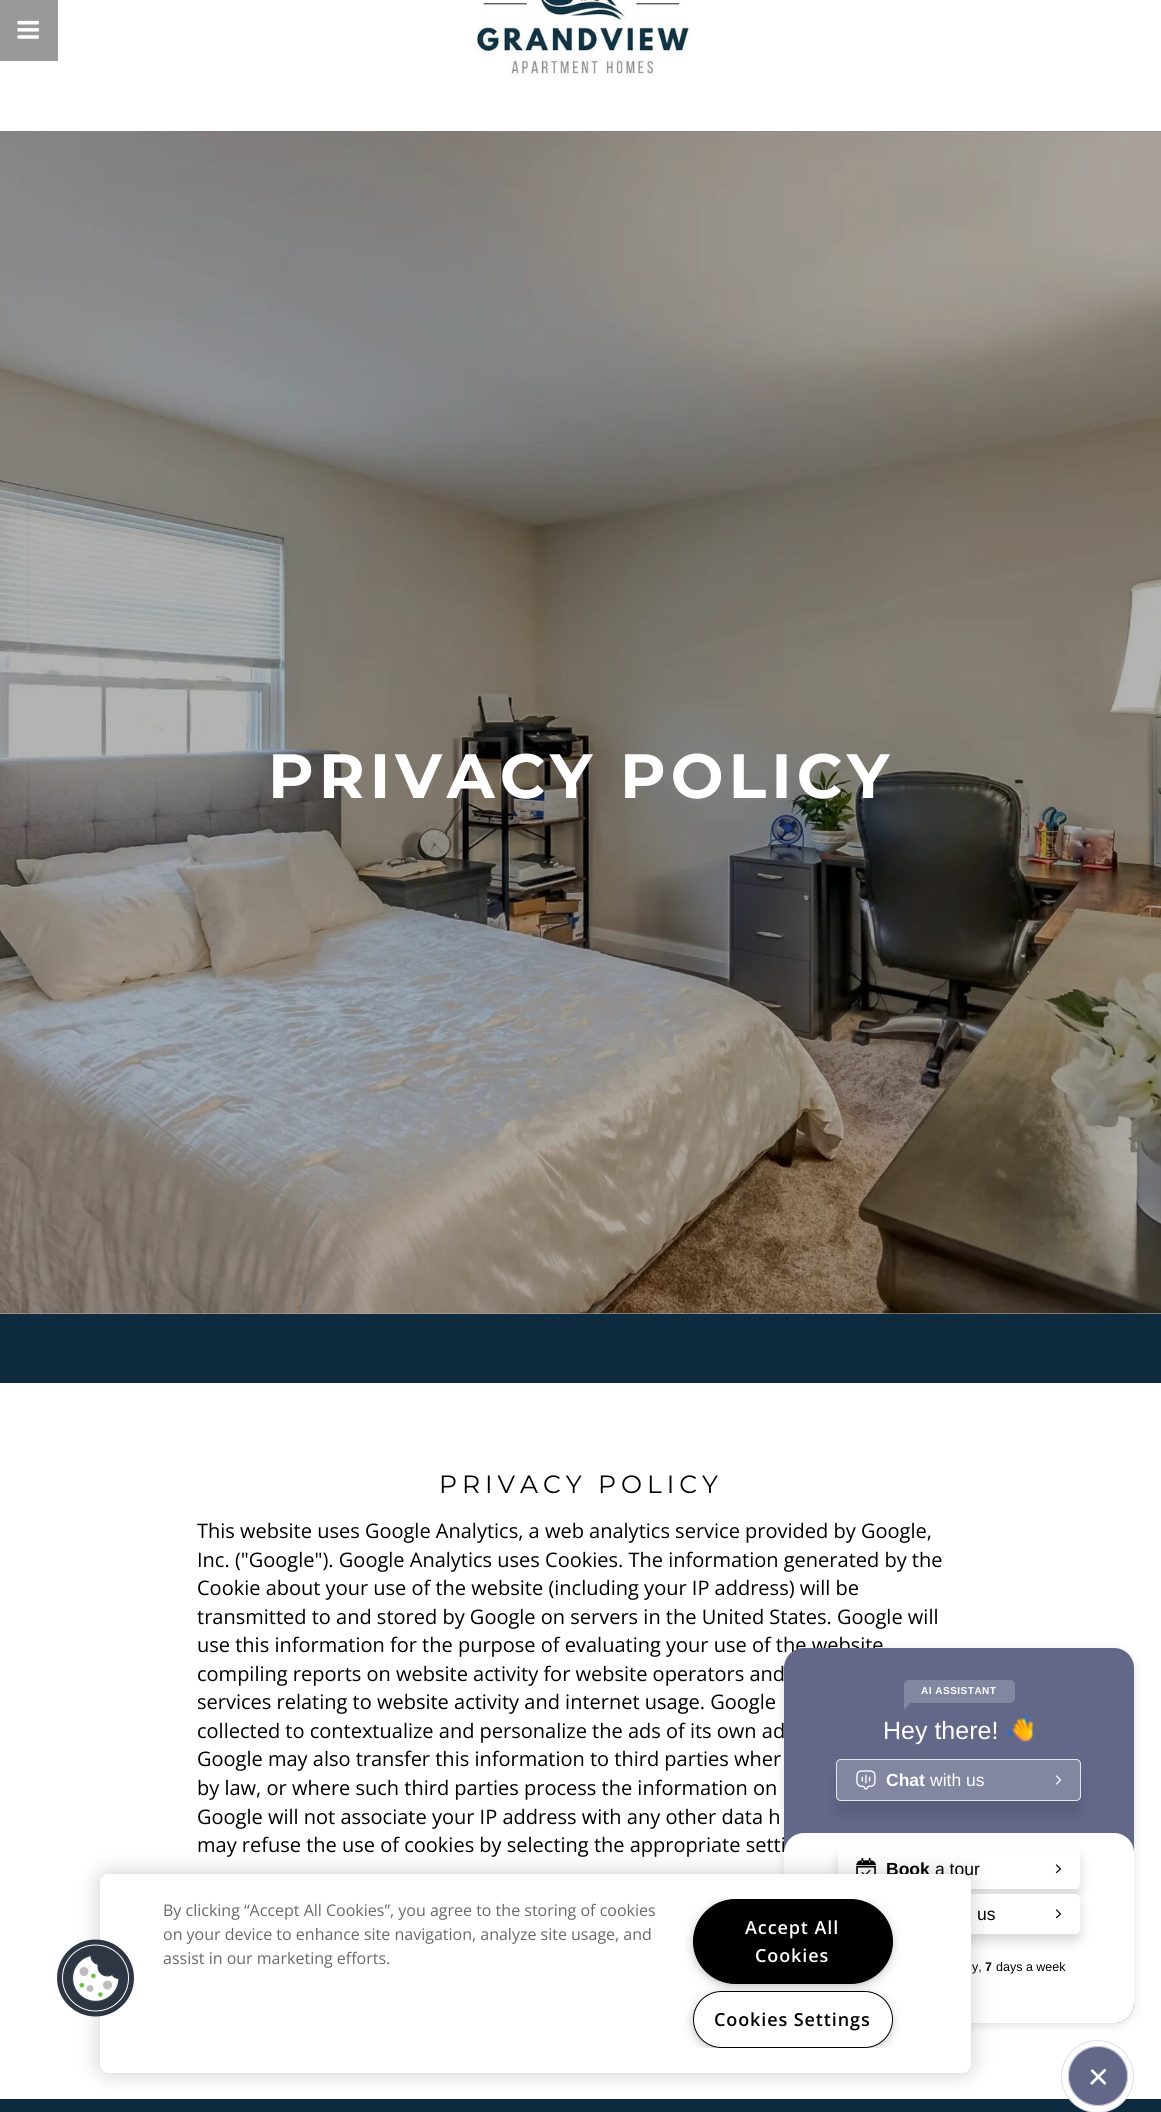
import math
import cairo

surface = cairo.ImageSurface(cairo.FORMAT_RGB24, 1161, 2112)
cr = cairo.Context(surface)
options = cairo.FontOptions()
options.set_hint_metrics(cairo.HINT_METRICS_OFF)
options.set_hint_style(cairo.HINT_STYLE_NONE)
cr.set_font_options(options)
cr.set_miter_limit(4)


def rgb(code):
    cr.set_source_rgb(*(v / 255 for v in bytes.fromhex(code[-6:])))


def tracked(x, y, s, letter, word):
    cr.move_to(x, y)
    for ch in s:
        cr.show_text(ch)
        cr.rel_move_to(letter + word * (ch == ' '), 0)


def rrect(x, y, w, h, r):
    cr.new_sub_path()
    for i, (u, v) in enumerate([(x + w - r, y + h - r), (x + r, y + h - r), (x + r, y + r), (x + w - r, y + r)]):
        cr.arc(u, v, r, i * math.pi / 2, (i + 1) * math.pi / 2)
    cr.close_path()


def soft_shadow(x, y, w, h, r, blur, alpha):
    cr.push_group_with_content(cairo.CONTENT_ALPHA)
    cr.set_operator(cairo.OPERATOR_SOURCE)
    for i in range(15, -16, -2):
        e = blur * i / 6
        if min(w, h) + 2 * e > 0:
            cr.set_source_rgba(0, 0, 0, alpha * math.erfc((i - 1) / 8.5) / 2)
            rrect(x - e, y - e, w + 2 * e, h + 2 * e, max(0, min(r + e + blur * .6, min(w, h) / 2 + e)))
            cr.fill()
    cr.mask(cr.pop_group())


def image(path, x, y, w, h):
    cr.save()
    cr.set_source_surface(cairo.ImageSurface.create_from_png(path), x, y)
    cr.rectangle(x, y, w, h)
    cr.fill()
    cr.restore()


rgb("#ffffff")
cr.paint()
rgb("#b3b3b3")
cr.rectangle(0, 1313, 1161, 1)
cr.fill()
rgb("#999999")
cr.rectangle(0, 0, 58, 61)
cr.fill()
image("img/1.png", 17, 20, 22, 19)
image("img/2.png", 475, 0, 217, 77)
rgb("#0e2a3f")
cr.rectangle(0, 1314, 1161, 69)
cr.fill()
image("img/3.png", 0, 131, 1161, 1183)
cr.rectangle(0, 2099, 1161, 13)
cr.fill()
rgb("#636363")
soft_shadow(784, 1650, 350, 375, 20, 5, 0.2)
rgb("#ffffff")
cr.arc(1097.5, 2076.5, 36.5, 0, 2 * math.pi)
cr.fill()
cr.arc(1097.5, 2076.5, 36, 0, 2 * math.pi)
cr.set_source_rgba(0.373, 0.373, 0.373, 0.2)
cr.set_line_width(1)
cr.stroke()
rgb("#636889")
cr.arc(1098, 2076, 30, 0, 2 * math.pi)
cr.fill()
cr.arc(1098, 2076, 29.5, 0, 2 * math.pi)
cr.set_source_rgba(1, 1, 1, 0.7)
cr.stroke()
cr.new_path()
cr.move_to(1091, 2084)
cr.line_to(1105.5, 2069.5)
cr.move_to(1091.5, 2070)
cr.line_to(1105.5, 2084)
rgb("#ffffff")
cr.set_line_width(2.7)
cr.stroke()
cr.select_font_face("Montserrat", cairo.FONT_SLANT_NORMAL, cairo.FONT_WEIGHT_BOLD)
cr.set_font_size(62.5)
tracked(268, 798, "PRIVACY POLICY", 5, 0)
cr.select_font_face("Montserrat")
cr.set_font_size(25)
rgb("#000000")
tracked(439, 1493, "PRIVACY POLICY", 5, 0)
cr.select_font_face("Open Sans")
cr.set_font_size(20)
for x, y, s in [
    (197, 1538, "This website uses Google Analytics, a web analytics service provided by Google,"),
    (197, 1567, "Inc. (\"Google\"). Google Analytics uses Cookies. The information generated by the"),
    (197, 1595, "Cookie about your use of the website (including your IP address) will be"),
    (197, 1624, "transmitted to and stored by Google on servers in the United States. Google will"),
    (197, 1652, "use this information for the purpose of evaluating your use of the website"),
    (197, 1681, "compiling reports on website activity for website operators and"),
    (197, 1709, "services relating to website activity and internet usage. Google"),
    (197, 1738, "collected to contextualize and personalize the ads of its own ad"),
    (197, 1766, "Google may also transfer this information to third parties wher"),
    (197, 1795, "by law, or where such third parties process the information on"),
    (197, 1824, "Google will not associate your IP address with any other data h"),
    (197, 1852, "may refuse the use of cookies by selecting the appropriate setti"),
]:
    cr.move_to(x, y)
    cr.show_text(s)
rgb("#636889")
rrect(784, 1648, 350, 375, 20)
cr.fill()
rgb("#8286a1")
cr.new_path()
cr.move_to(909, 1680)
cr.line_to(1010, 1680)
cr.curve_to(1013, 1680, 1015, 1682, 1015, 1685)
cr.line_to(1015, 1698)
cr.curve_to(1015, 1701, 1013, 1703, 1010, 1703)
cr.line_to(904, 1703)
cr.line_to(904, 1685)
cr.curve_to(904, 1682, 906, 1680, 909, 1680)
cr.close_path()
cr.fill()
cr.select_font_face("Liberation Sans", cairo.FONT_SLANT_NORMAL, cairo.FONT_WEIGHT_BOLD)
cr.set_font_size(10)
rgb("#ffffff")
tracked(921, 1694, "AI ASSISTANT", 0.5, 0)
rgb("#8286a1")
cr.new_path()
cr.move_to(904, 1702.5)
cr.line_to(911, 1702.5)
cr.line_to(907.5, 1706)
cr.close_path()
cr.fill()
cr.set_source_rgba(1, 1, 1, 0.2)
cr.new_path()
cr.move_to(904, 1710)
cr.line_to(904, 1702.5)
cr.line_to(907.5, 1706)
cr.close_path()
cr.fill()
cr.select_font_face("Liberation Sans")
cr.set_font_size(25)
rgb("#ffffff")
cr.move_to(883, 1739)
cr.show_text("Hey there!")
image("img/4.png", 1005, 1714, 28, 28)
rgb("#000000")
soft_shadow(836, 1774, 245, 42, 5, 6, 0.1)
rgb("#8286a1")
rrect(836, 1759, 245, 42, 5)
cr.fill()
rrect(836.5, 1759.5, 244, 41, 4.5)
cr.set_source_rgba(1, 1, 1, 0.8)
cr.set_line_width(1)
cr.stroke()
image("img/5.png", 856, 1770, 20, 20)
cr.select_font_face("Liberation Sans", cairo.FONT_SLANT_NORMAL, cairo.FONT_WEIGHT_BOLD)
cr.set_font_size(17.5)
rgb("#ffffff")
cr.move_to(886, 1786)
cr.show_text("Chat")
cr.select_font_face("Liberation Sans")
cr.move_to(930, 1786)
cr.show_text("with us")
cr.new_path()
cr.move_to(1056.5, 1784)
cr.line_to(1060.5, 1780)
cr.line_to(1056.5, 1776)
cr.set_line_width(1.2)
cr.set_line_cap(cairo.LINE_CAP_ROUND)
cr.set_line_join(cairo.LINE_JOIN_ROUND)
cr.stroke()
rrect(784, 1833, 350, 190, 20)
cr.fill()
rgb("#000000")
soft_shadow(838, 1856, 242, 40, 5, 6, 0.15)
rgb("#ffffff")
rrect(838, 1849, 242, 40, 5)
cr.fill()
image("img/6.png", 856, 1858, 20, 16)
cr.select_font_face("Liberation Sans", cairo.FONT_SLANT_NORMAL, cairo.FONT_WEIGHT_BOLD)
rgb("#000000")
cr.move_to(886, 1875)
cr.show_text("Book")
cr.select_font_face("Liberation Sans")
cr.move_to(935, 1875)
cr.show_text("a tour")
rgb("#000000")
soft_shadow(838, 1901, 242, 40, 5, 6, 0.15)
rgb("#ffffff")
rrect(838, 1894, 242, 40, 5)
cr.fill()
cr.new_path()
cr.move_to(1056.5, 1872.5)
cr.line_to(1060.5, 1869)
cr.line_to(1056.5, 1865)
cr.move_to(1056.5, 1917.5)
cr.line_to(1060.5, 1914)
cr.line_to(1056.5, 1910)
rgb("#000000")
cr.stroke()
cr.move_to(977, 1920)
cr.show_text("us")
cr.set_font_size(12.5)
cr.move_to(972, 1971)
cr.show_text("y,")
cr.select_font_face("Liberation Sans", cairo.FONT_SLANT_NORMAL, cairo.FONT_WEIGHT_BOLD)
cr.move_to(985, 1971)
cr.show_text("7")
cr.select_font_face("Liberation Sans")
cr.move_to(996, 1971)
cr.show_text("days a week")
rgb("#000000")
soft_shadow(100, 1874, 871, 199, 9, 11, 0.2)
rgb("#ffffff")
rrect(100, 1874, 871, 199, 9)
cr.fill()
image("img/7.png", 57, 1939, 77, 78)
cr.select_font_face("Open Sans")
cr.set_font_size(16)
rgb("#696969")
for x, y, s in [
    (163, 1916, "By clicking “Accept All Cookies”, you agree to the storing of cookies"),
    (163, 1940, "on your device to enhance site navigation, analyze site usage, and"),
    (163, 1964, "assist in our marketing efforts."),
]:
    cr.move_to(x, y)
    cr.show_text(s)
cr.save()
cr.rectangle(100, 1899, 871, 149)
cr.clip()
rgb("#999999")
soft_shadow(696, 1905, 193, 78, 39, 6, 1)
cr.restore()
rgb("#000000")
rrect(693.5, 1899.5, 199, 84, 42)
cr.fill_preserve()
cr.set_line_width(1)
cr.set_line_cap(cairo.LINE_CAP_BUTT)
cr.set_line_join(cairo.LINE_JOIN_MITER)
cr.stroke()
cr.select_font_face("Open Sans SemiBold")
cr.set_font_size(18)
rgb("#ffffff")
tracked(745, 1934, "Accept All", 0.9, 0)
tracked(755, 1962, "Cookies", 0.9, 0)
cr.save()
cr.rectangle(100, 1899, 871, 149)
cr.clip()
rgb("#999999")
soft_shadow(696, 1998, 193, 48, 24, 6, 1)
cr.restore()
rrect(693.5, 1991.5, 199, 56, 28)
cr.fill_preserve()
rgb("#000000")
cr.stroke()
tracked(714, 2026, "Cookies Settings", 0.9, 0)
surface.write_to_png("page.png")
